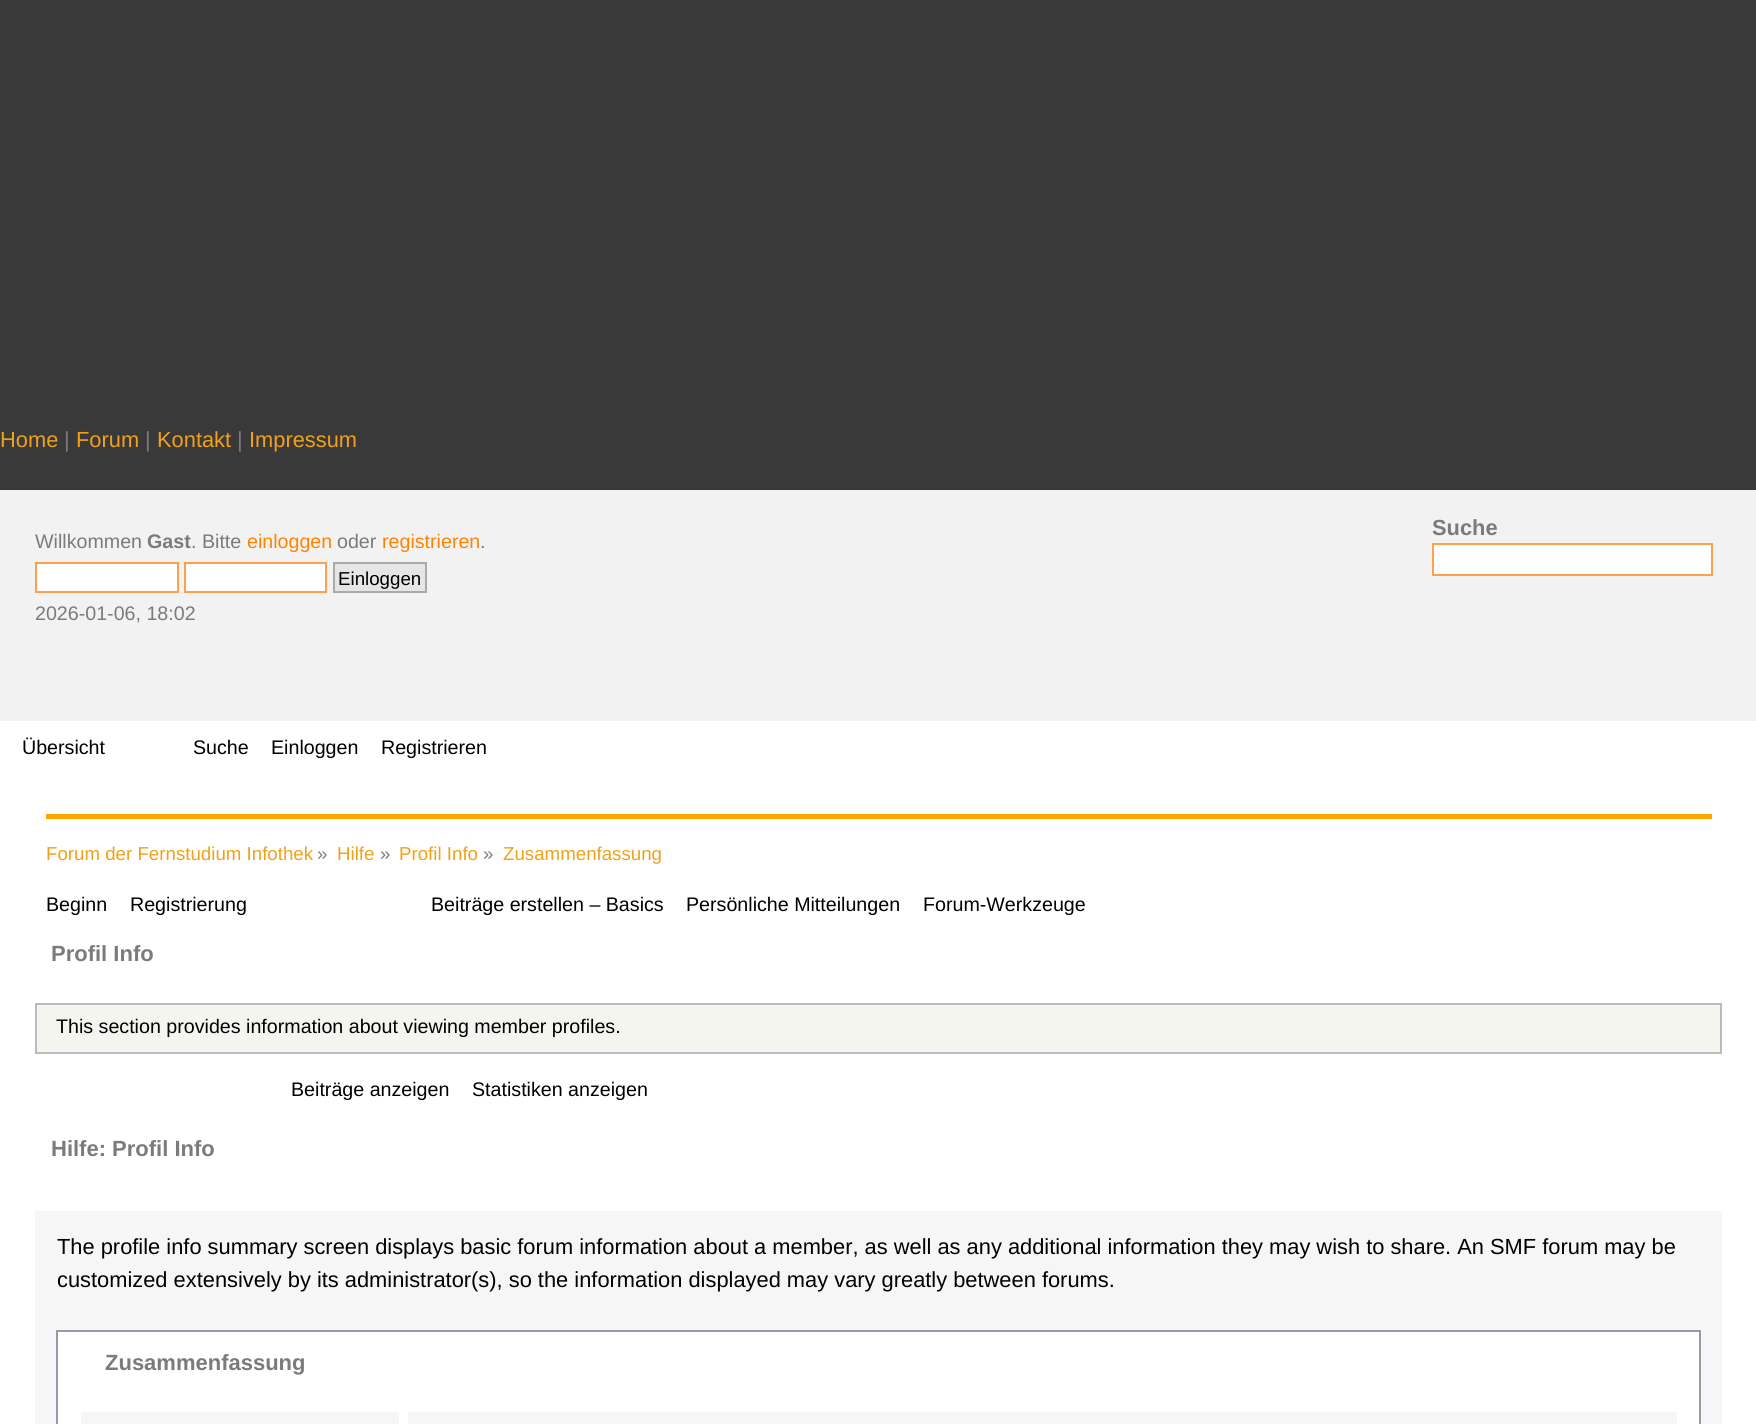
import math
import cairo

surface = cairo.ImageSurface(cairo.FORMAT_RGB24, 1756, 1424)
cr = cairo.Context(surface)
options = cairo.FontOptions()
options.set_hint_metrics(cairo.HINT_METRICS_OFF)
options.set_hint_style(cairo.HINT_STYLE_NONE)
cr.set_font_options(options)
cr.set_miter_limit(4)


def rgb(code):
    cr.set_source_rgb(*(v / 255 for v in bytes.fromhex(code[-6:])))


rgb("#39393a")
cr.paint()
rgb("#f2f2f2")
cr.rectangle(0, 490, 1756, 231)
cr.fill()
rgb("#ffffff")
cr.rectangle(1433, 544, 279, 31)
cr.fill_preserve()
rgb("#ffa04d")
cr.stroke()
rgb("#ffffff")
cr.rectangle(36, 563, 142, 29)
cr.fill_preserve()
rgb("#ffa04d")
cr.stroke()
rgb("#ffffff")
cr.rectangle(185, 563, 141, 29)
cr.fill_preserve()
rgb("#ffa04d")
cr.stroke()
rgb("#e6e6e6")
cr.rectangle(334, 563, 92, 29)
cr.fill_preserve()
rgb("#aaaaaa")
cr.stroke()
rgb("#ffffff")
cr.rectangle(0, 721, 1756, 703)
cr.fill()
rgb("#ffa500")
cr.rectangle(46, 814, 1666, 5)
cr.fill()
rgb("#f5f5f0")
cr.rectangle(36, 1004, 1685, 49)
cr.fill_preserve()
rgb("#bbbbbb")
cr.stroke()
rgb("#f6f6f6")
cr.rectangle(35, 1211, 1687, 213)
cr.fill()
rgb("#ffffff")
cr.rectangle(57, 1331, 1643, 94)
cr.fill_preserve()
rgb("#9999aa")
cr.stroke()
rgb("#f6f6f6")
cr.rectangle(81, 1412, 318, 12)
cr.fill()
cr.rectangle(408, 1412, 1269, 12)
cr.fill()
cr.select_font_face("Liberation Sans")
cr.set_font_size(21.85)
rgb("#f0a118")
cr.move_to(0, 447)
cr.show_text("Home")
rgb("#7b7b7b")
cr.move_to(64, 447)
cr.show_text("|")
rgb("#f0a118")
cr.move_to(76, 447)
cr.show_text("Forum")
rgb("#7b7b7b")
cr.move_to(145, 447)
cr.show_text("|")
rgb("#f0a118")
cr.move_to(157, 447)
cr.show_text("Kontakt")
rgb("#7b7b7b")
cr.move_to(237, 447)
cr.show_text("|")
rgb("#f0a118")
cr.move_to(249, 447)
cr.show_text("Impressum")
cr.select_font_face("Liberation Sans", cairo.FONT_SLANT_NORMAL, cairo.FONT_WEIGHT_BOLD)
rgb("#7b7b7b")
cr.move_to(1432, 535)
cr.show_text("Suche")
cr.select_font_face("Liberation Sans")
cr.set_font_size(19.65)
cr.move_to(35, 548)
cr.show_text("Willkommen")
cr.select_font_face("Liberation Sans", cairo.FONT_SLANT_NORMAL, cairo.FONT_WEIGHT_BOLD)
cr.move_to(147, 548)
cr.show_text("Gast")
cr.select_font_face("Liberation Sans")
cr.move_to(191, 548)
cr.show_text(". Bitte")
rgb("#ff8300")
cr.move_to(247, 548)
cr.show_text("einloggen")
rgb("#7b7b7b")
cr.move_to(337, 548)
cr.show_text("oder")
rgb("#ff8300")
cr.move_to(382, 548)
cr.show_text("registrieren")
rgb("#7b7b7b")
cr.move_to(480, 548)
cr.show_text(".")
cr.set_font_size(18.7)
rgb("#000000")
cr.move_to(338, 585)
cr.show_text("Einloggen")
cr.set_font_size(19.65)
rgb("#7b7b7b")
cr.move_to(35, 620)
cr.show_text("2026-01-06, 18:02")
rgb("#000000")
for x, y, s in [
    (22, 754, "Übersicht"),
    (193, 754, "Suche"),
    (271, 754, "Einloggen"),
    (381, 754, "Registrieren"),
]:
    cr.move_to(x, y)
    cr.show_text(s)
cr.set_font_size(18.7)
rgb("#f0a118")
cr.move_to(46, 860)
cr.show_text("Forum der Fernstudium Infothek")
rgb("#7b7b7b")
cr.move_to(317, 860)
cr.show_text("»")
rgb("#f0a118")
cr.move_to(337, 860)
cr.show_text("Hilfe")
rgb("#7b7b7b")
cr.move_to(380, 860)
cr.show_text("»")
rgb("#f0a118")
cr.move_to(399, 860)
cr.show_text("Profil Info")
rgb("#7b7b7b")
cr.move_to(483, 860)
cr.show_text("»")
rgb("#f0a118")
cr.move_to(503, 860)
cr.show_text("Zusammenfassung")
cr.set_font_size(19.65)
rgb("#000000")
for x, y, s in [
    (46, 911, "Beginn"),
    (130, 911, "Registrierung"),
    (431, 911, "Beiträge erstellen – Basics"),
    (686, 911, "Persönliche Mitteilungen"),
    (923, 911, "Forum-Werkzeuge"),
]:
    cr.move_to(x, y)
    cr.show_text(s)
cr.select_font_face("Liberation Sans", cairo.FONT_SLANT_NORMAL, cairo.FONT_WEIGHT_BOLD)
cr.set_font_size(22)
rgb("#7b7b7b")
cr.move_to(51, 961)
cr.show_text("Profil Info")
cr.select_font_face("Liberation Sans")
cr.set_font_size(19.65)
rgb("#000000")
for x, y, s in [
    (56, 1033, "This section provides information about viewing member profiles."),
    (291, 1096, "Beiträge anzeigen"),
    (472, 1096, "Statistiken anzeigen"),
]:
    cr.move_to(x, y)
    cr.show_text(s)
cr.select_font_face("Liberation Sans", cairo.FONT_SLANT_NORMAL, cairo.FONT_WEIGHT_BOLD)
cr.set_font_size(22)
rgb("#7b7b7b")
cr.move_to(51, 1156)
cr.show_text("Hilfe: Profil Info")
cr.select_font_face("Liberation Sans")
cr.set_font_size(21.85)
rgb("#000000")
cr.move_to(57, 1254)
cr.show_text("The profile info summary screen displays basic forum information about a member, as well as any additional information they may wish to share. An SMF forum may be")
cr.move_to(57, 1287)
cr.show_text("customized extensively by its administrator(s), so the information displayed may vary greatly between forums.")
cr.select_font_face("Liberation Sans", cairo.FONT_SLANT_NORMAL, cairo.FONT_WEIGHT_BOLD)
cr.set_font_size(22)
rgb("#7b7b7b")
cr.move_to(105, 1370)
cr.show_text("Zusammenfassung")
surface.write_to_png("page.png")
